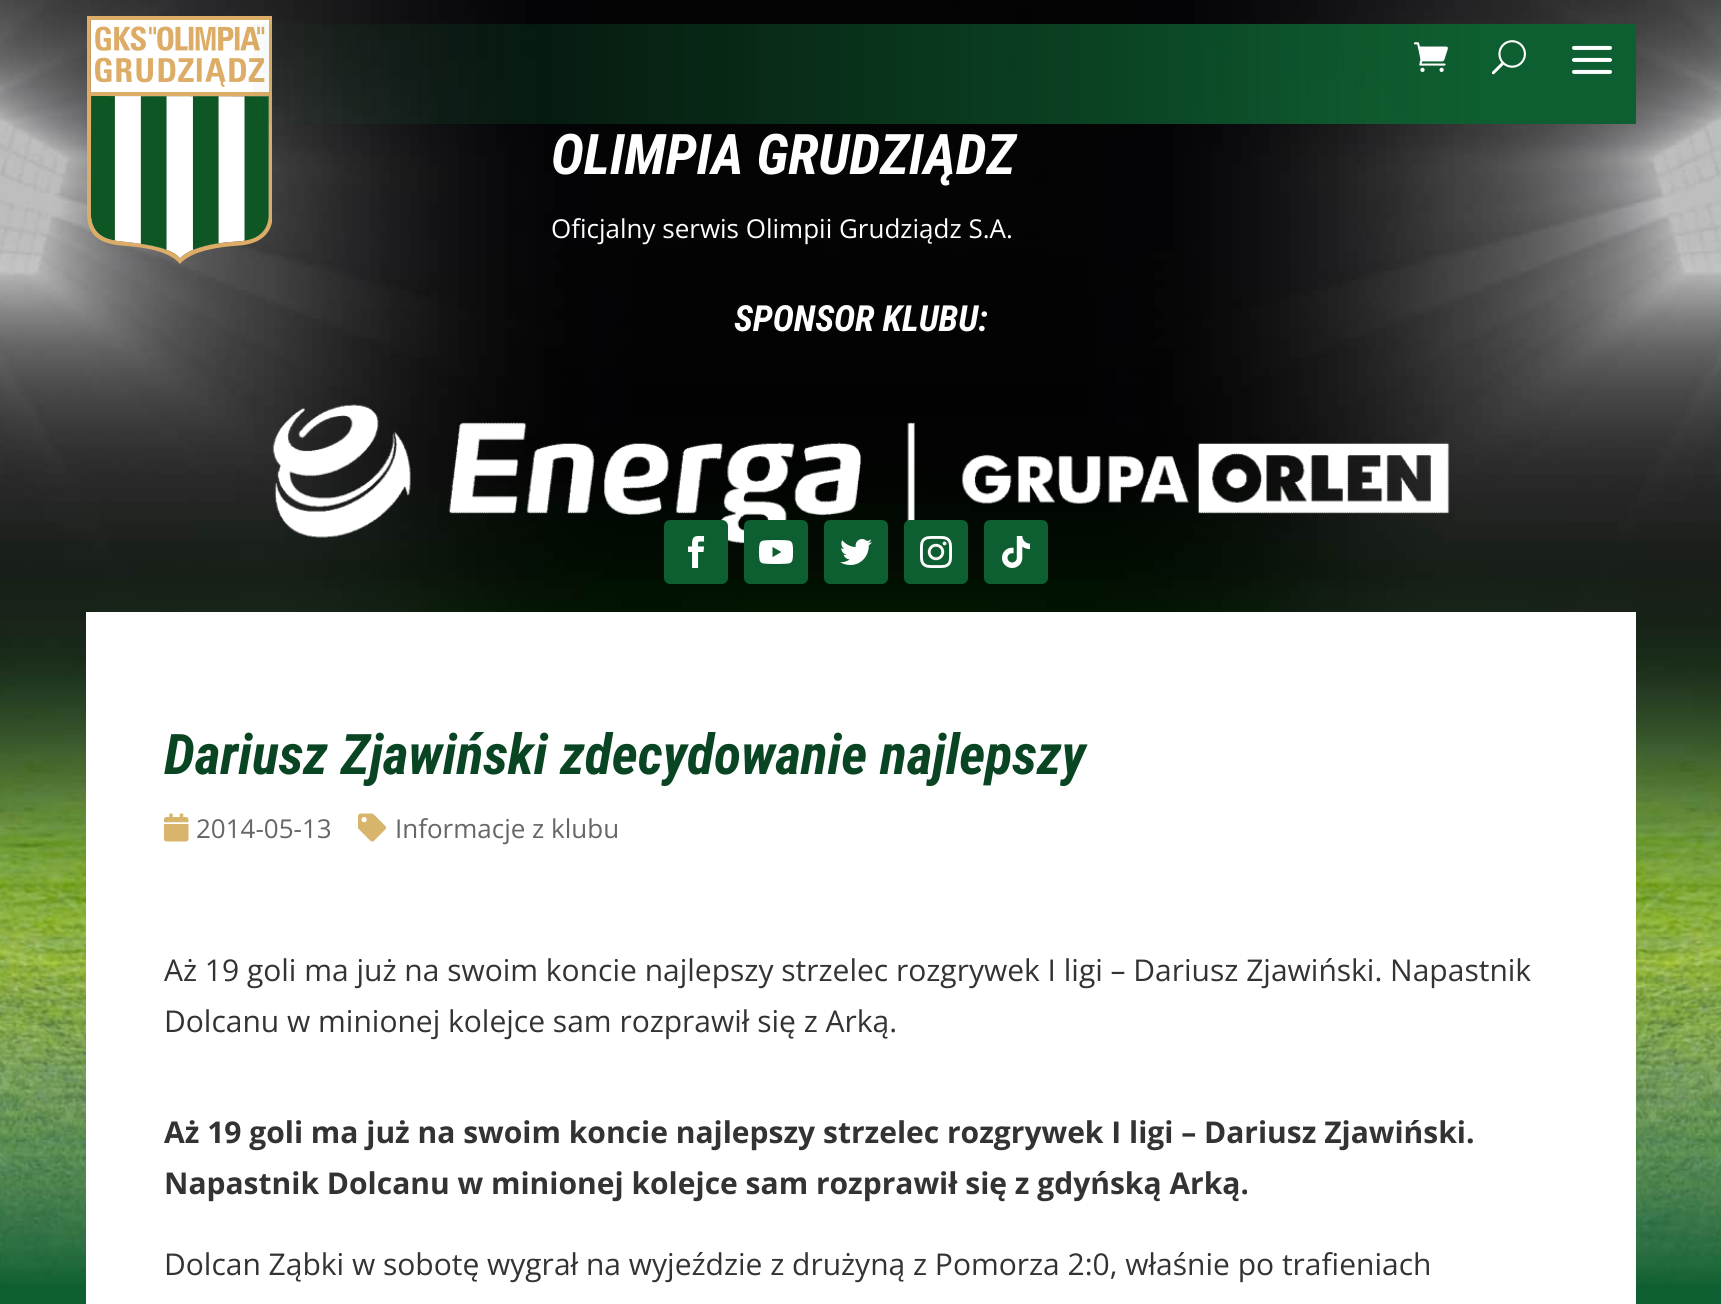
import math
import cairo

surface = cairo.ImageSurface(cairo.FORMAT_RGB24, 1721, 1304)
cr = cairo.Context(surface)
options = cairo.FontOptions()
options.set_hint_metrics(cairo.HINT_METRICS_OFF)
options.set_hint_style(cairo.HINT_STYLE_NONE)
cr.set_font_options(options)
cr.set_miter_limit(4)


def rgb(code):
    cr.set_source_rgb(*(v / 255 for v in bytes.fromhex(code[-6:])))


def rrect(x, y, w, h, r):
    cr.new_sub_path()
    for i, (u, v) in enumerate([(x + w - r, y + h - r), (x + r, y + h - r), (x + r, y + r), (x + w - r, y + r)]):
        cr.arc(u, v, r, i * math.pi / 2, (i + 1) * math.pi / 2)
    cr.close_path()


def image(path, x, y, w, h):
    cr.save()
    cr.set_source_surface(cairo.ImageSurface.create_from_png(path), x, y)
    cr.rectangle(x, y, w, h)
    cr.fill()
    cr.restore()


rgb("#0d5e30")
cr.paint()
image("img/1.png", 0, 0, 1721, 1287)
image("img/5.png", 87, 16, 185, 248)
gradient = cairo.LinearGradient(1636, 74, 86, 74)
gradient.add_color_stop_rgba(0.1, 0.051, 0.369, 0.188, 1)
gradient.add_color_stop_rgba(0.91, 0.051, 0.369, 0.188, 0)
cr.set_source(gradient)
cr.rectangle(253, 24, 1383, 100)
cr.fill()
image("img/2.png", 1413, 42, 35, 30)
image("img/3.png", 1491, 40, 35, 35)
image("img/4.png", 1572, 45, 40, 29)
image("img/6.png", 272, 404, 1178, 140)
rgb("#0d5e30")
rrect(664, 520, 64, 64, 6)
cr.fill()
image("img/7.png", 688, 536, 17, 32)
rrect(744, 520, 64, 64, 6)
cr.fill()
image("img/8.png", 758, 540, 36, 24)
rrect(824, 520, 64, 64, 6)
cr.fill()
image("img/9.png", 840, 539, 32, 26)
rrect(904, 520, 64, 64, 6)
cr.fill()
image("img/10.png", 920, 536, 32, 32)
rrect(984, 520, 64, 64, 6)
cr.fill()
image("img/11.png", 1002, 536, 28, 32)
rgb("#ffffff")
cr.rectangle(86, 612, 1550, 692)
cr.fill()
image("img/12.png", 164, 813, 25, 29)
image("img/13.png", 358, 813, 28, 29)
cr.select_font_face("Roboto Condensed", cairo.FONT_SLANT_ITALIC, cairo.FONT_WEIGHT_BOLD)
cr.set_font_size(56)
cr.move_to(551, 174)
cr.show_text("OLIMPIA GRUDZIĄDZ")
cr.select_font_face("Open Sans")
cr.set_font_size(26)
cr.move_to(551, 238)
cr.show_text("Oficjalny serwis Olimpii Grudziądz S.A.")
cr.select_font_face("Roboto Condensed", cairo.FONT_SLANT_ITALIC, cairo.FONT_WEIGHT_BOLD)
cr.set_font_size(36)
cr.move_to(734, 331)
cr.show_text("SPONSOR KLUBU:")
cr.set_font_size(56)
rgb("#0a4523")
cr.move_to(164, 774)
cr.show_text("Dariusz Zjawiński zdecydowanie najlepszy")
cr.select_font_face("Open Sans")
cr.set_font_size(26)
rgb("#666666")
cr.move_to(196, 838)
cr.show_text("2014-05-13")
cr.move_to(395, 838)
cr.show_text("Informacje z klubu")
cr.set_font_size(30)
rgb("#333333")
cr.move_to(164, 981)
cr.show_text("Aż 19 goli ma już na swoim koncie najlepszy strzelec rozgrywek I ligi – Dariusz Zjawiński. Napastnik")
cr.move_to(164, 1032)
cr.show_text("Dolcanu w minionej kolejce sam rozprawił się z Arką.")
cr.select_font_face("Open Sans", cairo.FONT_SLANT_NORMAL, cairo.FONT_WEIGHT_BOLD)
cr.move_to(164, 1143)
cr.show_text("Aż 19 goli ma już na swoim koncie najlepszy strzelec rozgrywek I ligi – Dariusz Zjawiński.")
cr.move_to(164, 1194)
cr.show_text("Napastnik Dolcanu w minionej kolejce sam rozprawił się z gdyńską Arką.")
cr.select_font_face("Open Sans")
cr.move_to(164, 1275)
cr.show_text("Dolcan Ząbki w sobotę wygrał na wyjeździe z drużyną z Pomorza 2:0, właśnie po trafieniach")
surface.write_to_png("page.png")
